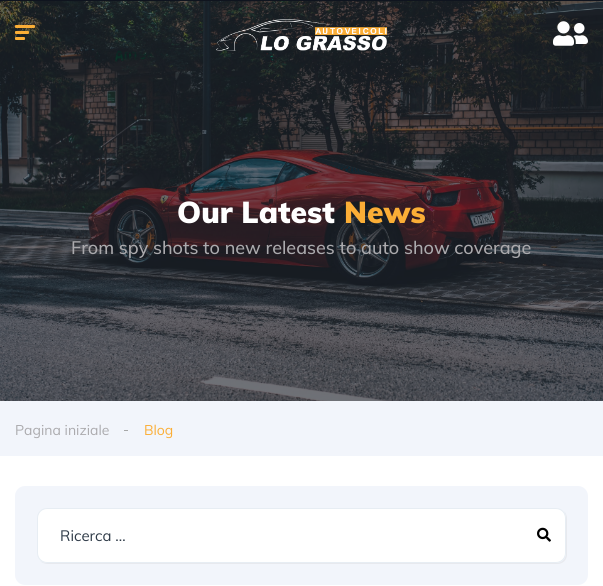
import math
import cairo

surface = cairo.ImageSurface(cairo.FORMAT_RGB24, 603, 586)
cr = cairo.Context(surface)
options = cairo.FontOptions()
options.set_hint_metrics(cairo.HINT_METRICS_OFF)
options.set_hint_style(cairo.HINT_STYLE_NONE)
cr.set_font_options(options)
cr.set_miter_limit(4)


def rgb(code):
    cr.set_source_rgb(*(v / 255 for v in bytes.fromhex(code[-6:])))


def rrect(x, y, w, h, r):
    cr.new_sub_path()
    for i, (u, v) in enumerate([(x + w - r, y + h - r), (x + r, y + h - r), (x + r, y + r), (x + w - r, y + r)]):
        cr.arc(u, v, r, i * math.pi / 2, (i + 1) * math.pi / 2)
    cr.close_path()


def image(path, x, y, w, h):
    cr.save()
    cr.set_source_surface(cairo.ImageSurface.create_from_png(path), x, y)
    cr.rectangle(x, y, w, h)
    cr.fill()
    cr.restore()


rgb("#ffffff")
cr.paint()
rgb("#0f141e")
cr.rectangle(0, 0, 603, 1)
cr.fill()
image("img/3.png", 0, 1, 603, 400)
rgb("#fbae36")
rrect(15, 25, 20, 3, 1)
cr.fill()
rrect(15, 31, 14, 3, 1)
cr.fill()
rrect(15, 37, 10, 3, 1)
cr.fill()
image("img/1.png", 216, 19, 171, 32)
image("img/2.png", 553, 21, 35, 25)
rgb("#f2f5fb")
cr.rectangle(0, 401, 603, 55)
cr.fill()
rgb("#a7a8a8")
cr.rectangle(124, 430, 4, 1)
cr.fill()
rgb("#f2f5fb")
rrect(15, 486, 573, 99, 10)
cr.fill()
rgb("#e7e9ee")
cr.new_path()
cr.move_to(40, 561)
cr.curve_to(42, 563, 45, 564, 48, 564)
cr.line_to(557, 564)
cr.curve_to(563, 564, 567, 560, 567, 554)
cr.line_to(567, 519)
cr.curve_to(567, 516, 566, 513, 564, 511)
cr.curve_to(565, 513, 566, 515, 566, 518)
cr.line_to(566, 553)
cr.curve_to(566, 559, 562, 563, 556, 563)
cr.line_to(47, 563)
cr.curve_to(44, 563, 42, 562, 40, 561)
cr.close_path()
cr.fill()
rgb("#ffffff")
rrect(37.5, 508.5, 528, 54, 9.5)
cr.fill_preserve()
rgb("#e7edf3")
cr.set_line_width(1)
cr.stroke()
image("img/4.png", 537, 527, 14, 15)
cr.select_font_face("Muli Black")
cr.set_font_size(30)
rgb("#ffffff")
cr.move_to(177, 223)
cr.show_text("Our Latest")
rgb("#fbae36")
cr.move_to(344, 223)
cr.show_text("News")
cr.select_font_face("Muli Medium")
cr.set_font_size(18)
rgb("#abaaad")
cr.move_to(71, 254)
cr.show_text("From spy shots to new releases to auto show coverage")
cr.select_font_face("Muli")
cr.set_font_size(14)
cr.move_to(15, 435)
cr.show_text("Pagina iniziale")
rgb("#fbae36")
cr.move_to(144, 435)
cr.show_text("Blog")
cr.set_font_size(15)
rgb("#2f3b48")
cr.move_to(60, 541)
cr.show_text("Ricerca …")
surface.write_to_png("page.png")
